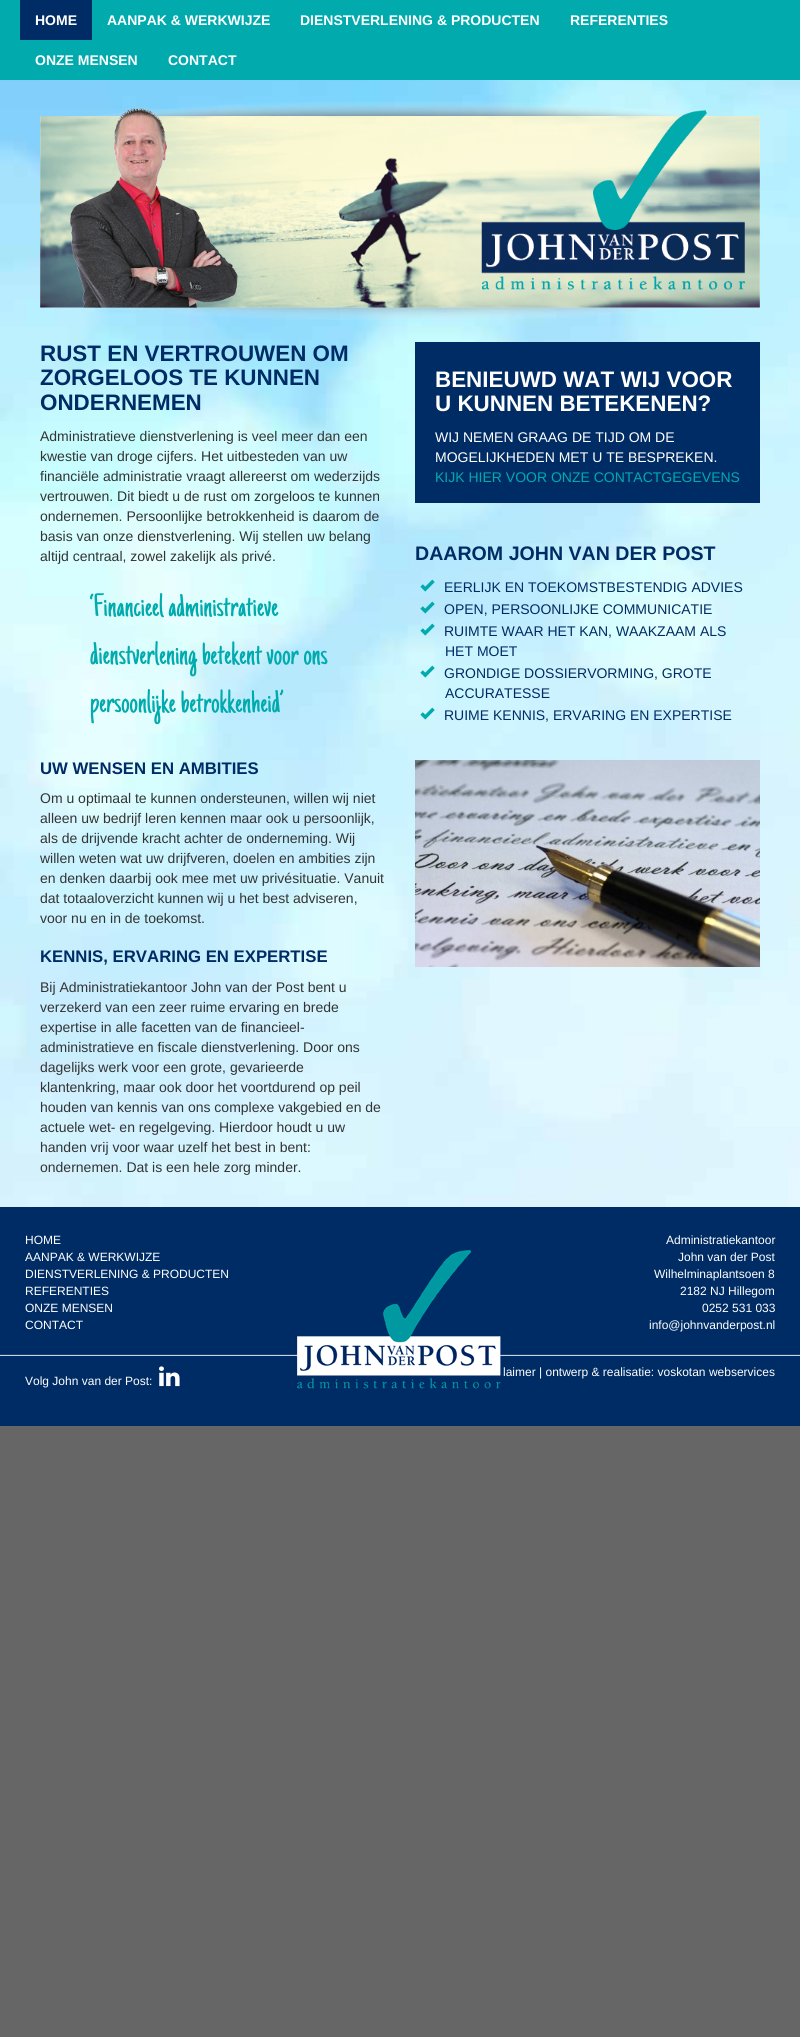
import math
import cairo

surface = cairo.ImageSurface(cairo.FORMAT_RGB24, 800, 2037)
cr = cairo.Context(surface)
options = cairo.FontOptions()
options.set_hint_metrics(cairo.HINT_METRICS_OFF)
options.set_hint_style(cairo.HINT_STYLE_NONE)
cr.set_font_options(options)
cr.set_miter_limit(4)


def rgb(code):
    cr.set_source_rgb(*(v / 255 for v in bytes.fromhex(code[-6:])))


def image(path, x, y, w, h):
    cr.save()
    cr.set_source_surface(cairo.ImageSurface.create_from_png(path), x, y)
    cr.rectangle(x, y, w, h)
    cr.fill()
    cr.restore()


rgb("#666666")
cr.paint()
image("img/1.png", 0, 80, 800, 1127)
rgb("#00aaad")
cr.rectangle(0, 0, 800, 80)
cr.fill()
rgb("#002c65")
cr.rectangle(20, 0, 72, 40)
cr.fill()
image("img/2.png", 40, 101, 720, 219)
cr.rectangle(415, 342, 345, 161)
cr.fill()
image("img/3.png", 420, 579, 15, 13)
image("img/4.png", 420, 601, 15, 13)
image("img/5.png", 420, 623, 15, 13)
image("img/6.png", 420, 665, 15, 13)
image("img/7.png", 420, 707, 15, 13)
image("img/8.png", 415, 760, 345, 207)
cr.rectangle(0, 1207, 800, 219)
cr.fill()
image("img/9.png", 0, 1250, 800, 139)
image("img/10.png", 159, 1366, 21, 21)
cr.select_font_face("Liberation Sans", cairo.FONT_SLANT_NORMAL, cairo.FONT_WEIGHT_BOLD)
cr.set_font_size(14)
rgb("#ffffff")
for x, y, s in [
    (35, 25, "HOME"),
    (107, 25, "AANPAK & WERKWIJZE"),
    (300, 25, "DIENSTVERLENING & PRODUCTEN"),
    (570, 25, "REFERENTIES"),
    (35, 65, "ONZE MENSEN"),
    (168, 65, "CONTACT"),
]:
    cr.move_to(x, y)
    cr.show_text(s)
cr.set_font_size(22.4)
rgb("#002c65")
for x, y, s in [
    (40, 361, "RUST EN VERTROUWEN OM"),
    (40, 385, "ZORGELOOS TE KUNNEN"),
    (40, 410, "ONDERNEMEN"),
]:
    cr.move_to(x, y)
    cr.show_text(s)
cr.select_font_face("Liberation Sans")
cr.set_font_size(14)
rgb("#333333")
for x, y, s in [
    (40, 441, "Administratieve dienstverlening is veel meer dan een"),
    (40, 461, "kwestie van droge cijfers. Het uitbesteden van uw"),
    (40, 481, "financiële administratie vraagt allereerst om wederzijds"),
    (40, 501, "vertrouwen. Dit biedt u de rust om zorgeloos te kunnen"),
    (40, 521, "ondernemen. Persoonlijke betrokkenheid is daarom de"),
    (40, 541, "basis van onze dienstverlening. Wij stellen uw belang"),
    (40, 561, "altijd centraal, zowel zakelijk als privé."),
]:
    cr.move_to(x, y)
    cr.show_text(s)
cr.select_font_face("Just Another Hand")
cr.set_font_size(33.5)
rgb("#00aaad")
for x, y, s in [
    (90, 616, "‘Financieel administratieve"),
    (90, 664, "dienstverlening betekent voor ons"),
    (90, 712, "persoonlijke betrokkenheid’"),
]:
    cr.move_to(x, y)
    cr.show_text(s)
cr.select_font_face("Liberation Sans", cairo.FONT_SLANT_NORMAL, cairo.FONT_WEIGHT_BOLD)
cr.set_font_size(16.75)
rgb("#002c65")
cr.move_to(40, 774)
cr.show_text("UW WENSEN EN AMBITIES")
cr.select_font_face("Liberation Sans")
cr.set_font_size(14)
rgb("#333333")
for x, y, s in [
    (40, 803, "Om u optimaal te kunnen ondersteunen, willen wij niet"),
    (40, 823, "alleen uw bedrijf leren kennen maar ook u persoonlijk,"),
    (40, 843, "als de drijvende kracht achter de onderneming. Wij"),
    (40, 863, "willen weten wat uw drijfveren, doelen en ambities zijn"),
    (40, 883, "en denken daarbij ook mee met uw privésituatie. Vanuit"),
    (40, 903, "dat totaaloverzicht kunnen wij u het best adviseren,"),
    (40, 923, "voor nu en in de toekomst."),
]:
    cr.move_to(x, y)
    cr.show_text(s)
cr.select_font_face("Liberation Sans", cairo.FONT_SLANT_NORMAL, cairo.FONT_WEIGHT_BOLD)
cr.set_font_size(16.75)
rgb("#002c65")
cr.move_to(40, 962)
cr.show_text("KENNIS, ERVARING EN EXPERTISE")
cr.select_font_face("Liberation Sans")
cr.set_font_size(14)
rgb("#333333")
for x, y, s in [
    (40, 992, "Bij Administratiekantoor John van der Post bent u"),
    (40, 1012, "verzekerd van een zeer ruime ervaring en brede"),
    (40, 1032, "expertise in alle facetten van de financieel-"),
    (40, 1052, "administratieve en fiscale dienstverlening. Door ons"),
    (40, 1072, "dagelijks werk voor een grote, gevarieerde"),
    (40, 1092, "klantenkring, maar ook door het voortdurend op peil"),
    (40, 1112, "houden van kennis van ons complexe vakgebied en de"),
    (40, 1132, "actuele wet- en regelgeving. Hierdoor houdt u uw"),
    (40, 1152, "handen vrij voor waar uzelf het best in bent:"),
    (40, 1172, "ondernemen. Dat is een hele zorg minder."),
]:
    cr.move_to(x, y)
    cr.show_text(s)
cr.select_font_face("Liberation Sans", cairo.FONT_SLANT_NORMAL, cairo.FONT_WEIGHT_BOLD)
cr.set_font_size(22.4)
rgb("#ffffff")
cr.move_to(435, 387)
cr.show_text("BENIEUWD WAT WIJ VOOR")
cr.move_to(435, 411)
cr.show_text("U KUNNEN BETEKENEN?")
cr.select_font_face("Liberation Sans")
cr.set_font_size(14)
cr.move_to(435, 442)
cr.show_text("WIJ NEMEN GRAAG DE TIJD OM DE")
cr.move_to(435, 462)
cr.show_text("MOGELIJKHEDEN MET U TE BESPREKEN.")
rgb("#00aaad")
cr.move_to(435, 482)
cr.show_text("KIJK HIER VOOR ONZE CONTACTGEGEVENS")
cr.select_font_face("Liberation Sans", cairo.FONT_SLANT_NORMAL, cairo.FONT_WEIGHT_BOLD)
cr.set_font_size(19.6)
rgb("#002c65")
cr.move_to(415, 560)
cr.show_text("DAAROM JOHN VAN DER POST")
cr.select_font_face("Liberation Sans")
cr.set_font_size(14)
for x, y, s in [
    (444, 592, "EERLIJK EN TOEKOMSTBESTENDIG ADVIES"),
    (444, 614, "OPEN, PERSOONLIJKE COMMUNICATIE"),
    (444, 636, "RUIMTE WAAR HET KAN, WAAKZAAM ALS"),
    (445, 656, "HET MOET"),
    (444, 678, "GRONDIGE DOSSIERVORMING, GROTE"),
    (445, 698, "ACCURATESSE"),
    (444, 720, "RUIME KENNIS, ERVARING EN EXPERTISE"),
]:
    cr.move_to(x, y)
    cr.show_text(s)
cr.set_font_size(12)
rgb("#ffffff")
for x, y, s in [
    (25, 1244, "HOME"),
    (25, 1261, "AANPAK & WERKWIJZE"),
    (25, 1278, "DIENSTVERLENING & PRODUCTEN"),
    (25, 1295, "REFERENTIES"),
    (25, 1312, "ONZE MENSEN"),
    (25, 1329, "CONTACT"),
    (666, 1244, "Administratiekantoor"),
    (678, 1261, "John van der Post"),
    (654, 1278, "Wilhelminaplantsoen 8"),
    (680, 1295, "2182 NJ Hillegom"),
    (702, 1312, "0252 531 033"),
    (649, 1329, "info@johnvanderpost.nl"),
    (503, 1376, "laimer | ontwerp & realisatie: voskotan webservices"),
    (25, 1385, "Volg John van der Post:"),
]:
    cr.move_to(x, y)
    cr.show_text(s)
surface.write_to_png("page.png")
